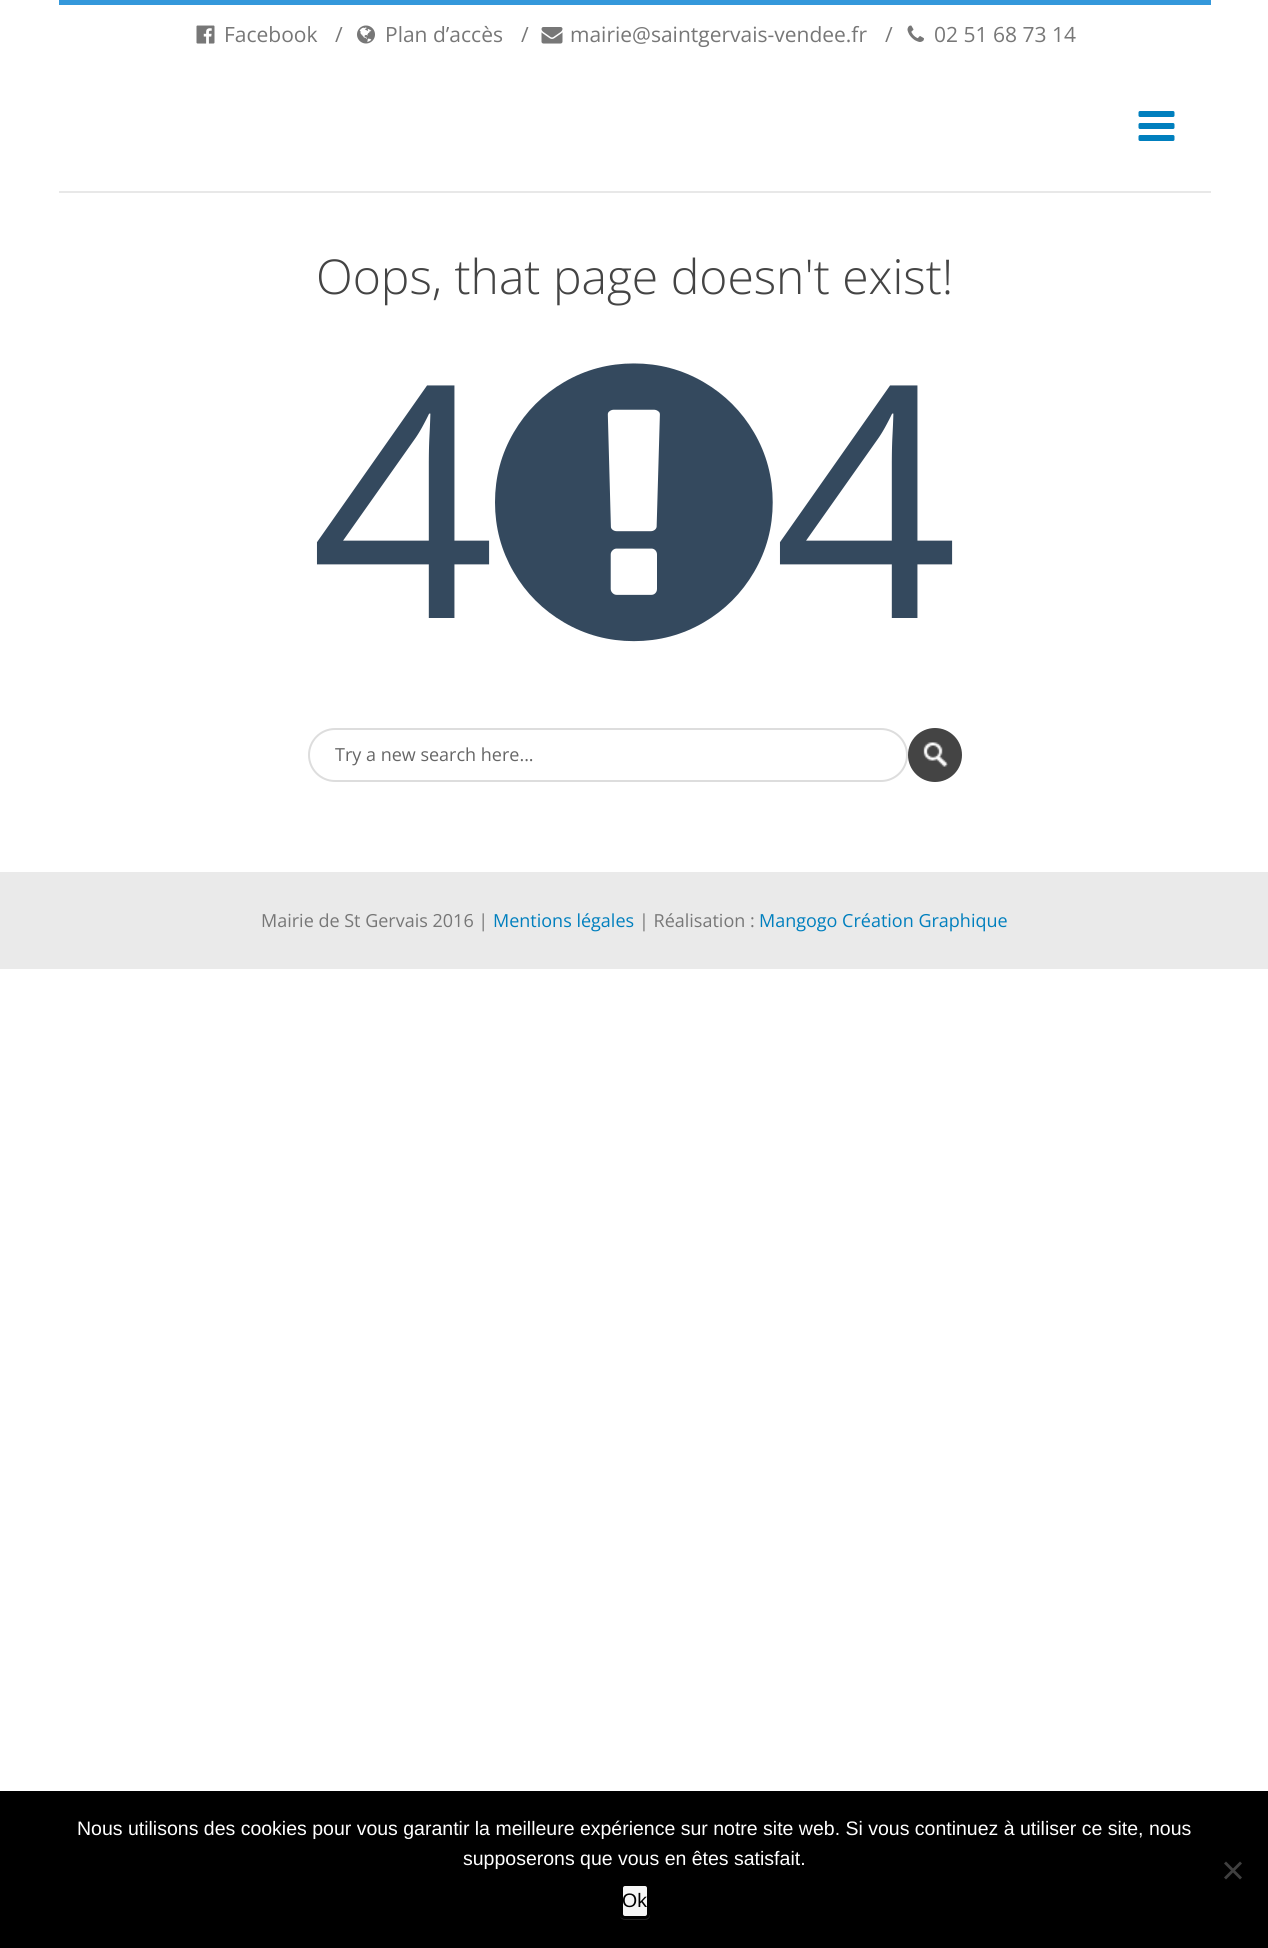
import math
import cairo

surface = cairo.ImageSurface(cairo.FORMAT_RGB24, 1268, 1948)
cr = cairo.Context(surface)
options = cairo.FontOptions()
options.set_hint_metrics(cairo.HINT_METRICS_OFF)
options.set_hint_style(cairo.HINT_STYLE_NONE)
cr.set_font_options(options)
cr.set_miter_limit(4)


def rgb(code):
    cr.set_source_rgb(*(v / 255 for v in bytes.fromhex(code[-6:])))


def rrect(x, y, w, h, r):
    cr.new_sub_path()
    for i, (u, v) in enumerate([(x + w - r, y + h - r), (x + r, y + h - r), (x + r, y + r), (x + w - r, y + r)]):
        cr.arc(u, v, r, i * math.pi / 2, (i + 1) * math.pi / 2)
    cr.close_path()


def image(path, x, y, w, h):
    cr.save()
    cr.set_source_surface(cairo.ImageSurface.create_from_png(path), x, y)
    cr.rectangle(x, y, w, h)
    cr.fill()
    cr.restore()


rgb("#ffffff")
cr.paint()
rgb("#3498db")
cr.rectangle(59, 0, 1152, 5)
cr.fill()
image("img/1.png", 196, 25, 19, 19)
image("img/2.png", 357, 25, 18, 19)
image("img/3.png", 541, 27, 22, 17)
image("img/4.png", 907, 25, 17, 17)
rgb("#e8e8e8")
cr.rectangle(59, 191, 1152, 2)
cr.fill()
image("img/5.png", 1138, 111, 37, 30)
image("img/6.png", 495, 363, 278, 279)
rrect(309, 729, 598, 52, 26)
rgb("#dddddd")
cr.stroke()
rgb("#444444")
cr.arc(935, 755, 27, 0, 2 * math.pi)
cr.fill()
image("img/7.png", 923, 742, 25, 25)
rgb("#eaeaea")
cr.rectangle(0, 872, 1268, 97)
cr.fill()
rgb("#000000")
cr.rectangle(0, 1791, 1268, 157)
cr.fill()
rgb("#404040")
cr.new_path()
cr.move_to(1240, 1861.5)
cr.line_to(1242, 1863.5)
cr.line_to(1226, 1879.5)
cr.line_to(1224, 1877.5)
cr.close_path()
cr.fill()
cr.new_path()
cr.move_to(1224, 1863.5)
cr.line_to(1226, 1861.5)
cr.line_to(1242, 1877.5)
cr.line_to(1240, 1879.5)
cr.close_path()
cr.fill()
rgb("#222222")
cr.new_path()
cr.move_to(620, 1916.5)
cr.curve_to(621, 1918.5, 622.5, 1920, 625, 1920)
cr.line_to(645, 1920)
cr.curve_to(648, 1920, 650, 1918, 650, 1915)
cr.line_to(650, 1889)
cr.line_to(649.5, 1887)
cr.line_to(649.5, 1909.5)
cr.curve_to(649.5, 1917.5, 649.5, 1918.5, 641.5, 1918.5)
cr.line_to(631, 1918.5)
cr.curve_to(628, 1918.5, 622.5, 1919.5, 620, 1916.5)
cr.close_path()
cr.fill()
rgb("#f6f6f6")
rrect(621.5, 1884.5, 27, 33, 3.5)
cr.fill_preserve()
rgb("#000000")
cr.set_line_width(3)
cr.stroke()
cr.select_font_face("Open Sans")
cr.set_font_size(21)
rgb("#777777")
for x, y, s in [
    (224, 42, "Facebook"),
    (335, 42, "/"),
    (385, 42, "Plan d’accès"),
    (521, 42, "/"),
    (570, 42, "mairie@saintgervais-vendee.fr"),
    (885, 42, "/"),
    (934, 42, "02 51 68 73 14"),
]:
    cr.move_to(x, y)
    cr.show_text(s)
cr.select_font_face("Open Sans Light")
cr.set_font_size(48)
rgb("#444444")
cr.move_to(316, 294)
cr.show_text("Oops, that page doesn't exist!")
cr.select_font_face("Open Sans")
cr.set_font_size(324)
rgb("#34495e")
cr.move_to(310, 618)
cr.show_text("4")
cr.move_to(773, 618)
cr.show_text("4")
cr.set_font_size(18)
rgb("#666666")
cr.move_to(335, 761)
cr.show_text("Try a new search here...")
rgb("#777777")
cr.move_to(261, 927)
cr.show_text("Mairie de St Gervais 2016 |")
rgb("#007fbe")
cr.move_to(493, 927)
cr.show_text("Mentions légales")
rgb("#777777")
cr.move_to(639, 927)
cr.show_text("| Réalisation :")
rgb("#007fbe")
cr.move_to(759, 927)
cr.show_text("Mangogo Création Graphique")
cr.select_font_face("Liberation Sans")
cr.set_font_size(19.5)
rgb("#ffffff")
cr.move_to(77, 1835)
cr.show_text("Nous utilisons des cookies pour vous garantir la meilleure expérience sur notre site web. Si vous continuez à utiliser ce site, nous")
cr.move_to(463, 1865)
cr.show_text("supposerons que vous en êtes satisfait.")
rgb("#000000")
cr.move_to(622, 1907)
cr.show_text("Ok")
surface.write_to_png("page.png")
